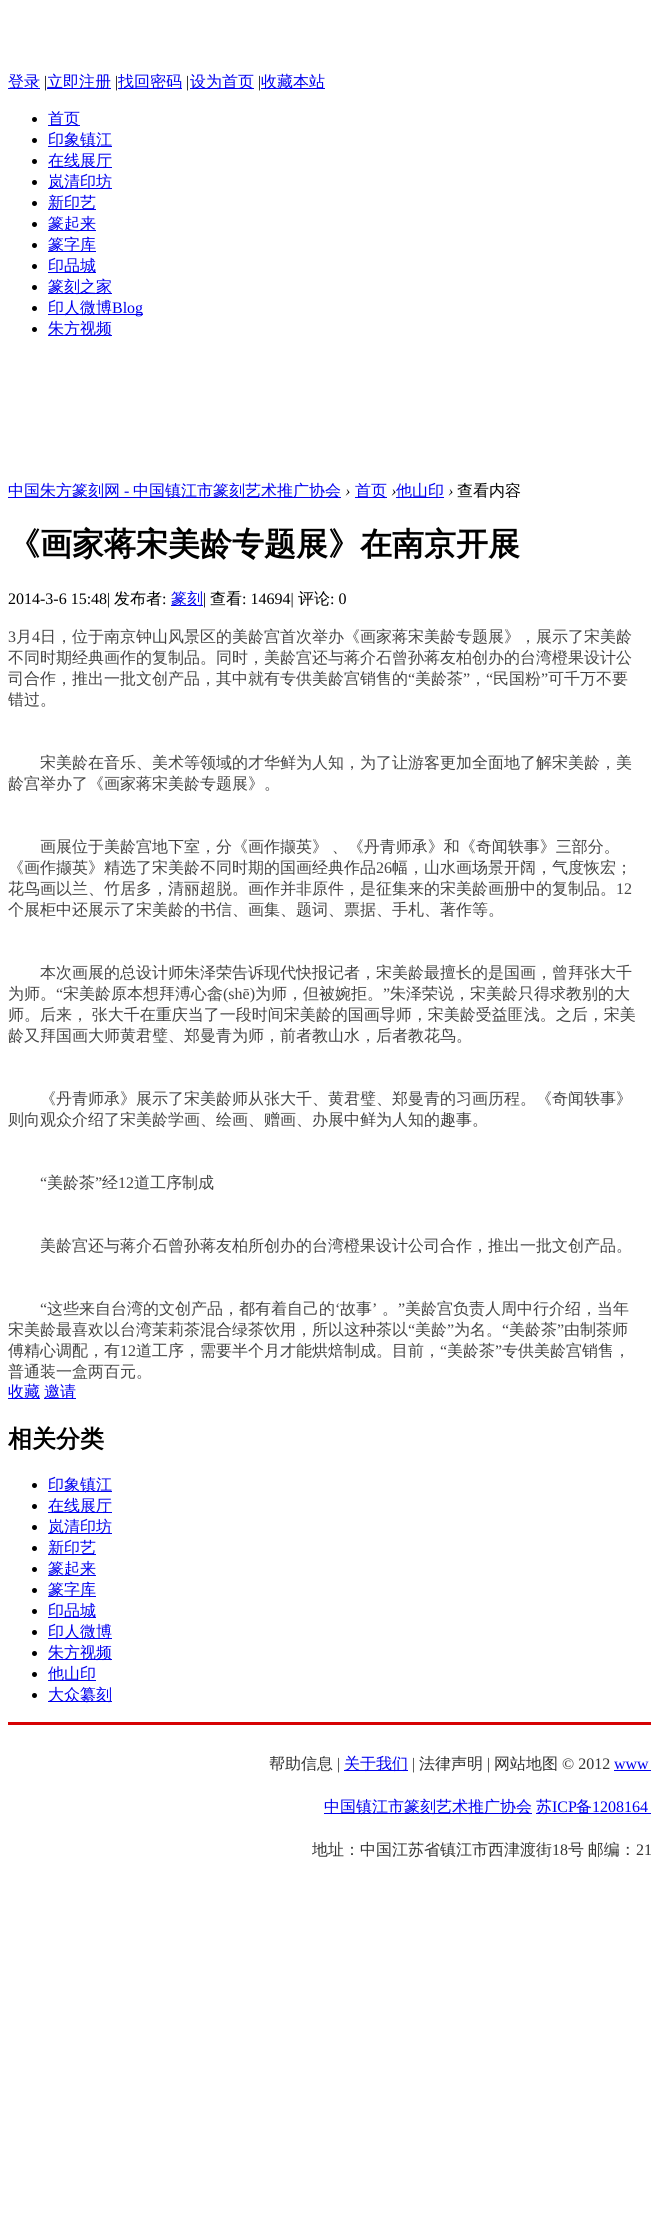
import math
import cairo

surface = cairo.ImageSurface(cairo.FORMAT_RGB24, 651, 2215)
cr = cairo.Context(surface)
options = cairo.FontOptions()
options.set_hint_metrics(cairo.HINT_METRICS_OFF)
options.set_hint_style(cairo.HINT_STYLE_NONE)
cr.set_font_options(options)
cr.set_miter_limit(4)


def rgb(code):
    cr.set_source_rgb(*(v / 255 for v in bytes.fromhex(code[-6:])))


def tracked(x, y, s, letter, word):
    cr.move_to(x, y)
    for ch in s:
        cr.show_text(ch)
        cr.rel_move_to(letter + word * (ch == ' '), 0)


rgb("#ffffff")
cr.paint()
for x, y, w, h, color in [
    (8, 88, 32, 1, "#0000ee"),
    (47, 88, 64, 1, "#0000ee"),
    (118, 88, 64, 1, "#0000ee"),
    (190, 88, 64, 1, "#0000ee"),
    (261, 88, 64, 1, "#0000ee"),
]:
    rgb(color)
    cr.rectangle(x, y, w, h)
    cr.fill()
rgb("#000000")
cr.arc(34.5, 119.5, 2.5, 0, 2 * math.pi)
cr.fill()
rgb("#0000ee")
cr.rectangle(48, 125, 32, 1)
cr.fill()
rgb("#000000")
cr.arc(34.5, 140.5, 2.5, 0, 2 * math.pi)
cr.fill()
rgb("#0000ee")
cr.rectangle(48, 146, 64, 1)
cr.fill()
rgb("#000000")
cr.arc(34.5, 161.5, 2.5, 0, 2 * math.pi)
cr.fill()
rgb("#0000ee")
cr.rectangle(48, 167, 64, 1)
cr.fill()
rgb("#000000")
cr.arc(34.5, 182.5, 2.5, 0, 2 * math.pi)
cr.fill()
rgb("#0000ee")
cr.rectangle(48, 188, 64, 1)
cr.fill()
rgb("#000000")
cr.arc(34.5, 203.5, 2.5, 0, 2 * math.pi)
cr.fill()
rgb("#0000ee")
cr.rectangle(48, 209, 48, 1)
cr.fill()
rgb("#000000")
cr.arc(34.5, 224.5, 2.5, 0, 2 * math.pi)
cr.fill()
rgb("#0000ee")
cr.rectangle(48, 230, 48, 1)
cr.fill()
rgb("#000000")
cr.arc(34.5, 245.5, 2.5, 0, 2 * math.pi)
cr.fill()
rgb("#0000ee")
cr.rectangle(48, 251, 48, 1)
cr.fill()
rgb("#000000")
cr.arc(34.5, 266.5, 2.5, 0, 2 * math.pi)
cr.fill()
rgb("#0000ee")
cr.rectangle(48, 272, 48, 1)
cr.fill()
rgb("#000000")
cr.arc(34.5, 287.5, 2.5, 0, 2 * math.pi)
cr.fill()
rgb("#0000ee")
cr.rectangle(48, 293, 64, 1)
cr.fill()
rgb("#000000")
cr.arc(34.5, 308.5, 2.5, 0, 2 * math.pi)
cr.fill()
rgb("#0000ee")
cr.rectangle(48, 314, 95, 1)
cr.fill()
rgb("#000000")
cr.arc(34.5, 329.5, 2.5, 0, 2 * math.pi)
cr.fill()
for x, y, w, h, color in [
    (48, 335, 64, 1, "#0000ee"),
    (8, 497, 333, 1, "#0000ee"),
    (355, 497, 32, 1, "#0000ee"),
    (396, 497, 48, 1, "#0000ee"),
    (171, 605, 32, 1, "#0000ee"),
    (8, 1398, 32, 1, "#0000ee"),
    (44, 1398, 32, 1, "#0000ee"),
]:
    rgb(color)
    cr.rectangle(x, y, w, h)
    cr.fill()
rgb("#000000")
cr.arc(34.5, 1485.5, 2.5, 0, 2 * math.pi)
cr.fill()
rgb("#0000ee")
cr.rectangle(48, 1491, 64, 1)
cr.fill()
rgb("#000000")
cr.arc(34.5, 1506.5, 2.5, 0, 2 * math.pi)
cr.fill()
rgb("#0000ee")
cr.rectangle(48, 1512, 64, 1)
cr.fill()
rgb("#000000")
cr.arc(34.5, 1527.5, 2.5, 0, 2 * math.pi)
cr.fill()
rgb("#0000ee")
cr.rectangle(48, 1533, 64, 1)
cr.fill()
rgb("#000000")
cr.arc(34.5, 1548.5, 2.5, 0, 2 * math.pi)
cr.fill()
rgb("#0000ee")
cr.rectangle(48, 1554, 48, 1)
cr.fill()
rgb("#000000")
cr.arc(34.5, 1569.5, 2.5, 0, 2 * math.pi)
cr.fill()
rgb("#0000ee")
cr.rectangle(48, 1575, 48, 1)
cr.fill()
rgb("#000000")
cr.arc(34.5, 1590.5, 2.5, 0, 2 * math.pi)
cr.fill()
rgb("#0000ee")
cr.rectangle(48, 1596, 48, 1)
cr.fill()
rgb("#000000")
cr.arc(34.5, 1611.5, 2.5, 0, 2 * math.pi)
cr.fill()
rgb("#0000ee")
cr.rectangle(48, 1617, 48, 1)
cr.fill()
rgb("#000000")
cr.arc(34.5, 1632.5, 2.5, 0, 2 * math.pi)
cr.fill()
rgb("#0000ee")
cr.rectangle(48, 1638, 64, 1)
cr.fill()
rgb("#000000")
cr.arc(34.5, 1653.5, 2.5, 0, 2 * math.pi)
cr.fill()
rgb("#0000ee")
cr.rectangle(48, 1659, 64, 1)
cr.fill()
rgb("#000000")
cr.arc(34.5, 1674.5, 2.5, 0, 2 * math.pi)
cr.fill()
rgb("#0000ee")
cr.rectangle(48, 1680, 48, 1)
cr.fill()
rgb("#000000")
cr.arc(34.5, 1695.5, 2.5, 0, 2 * math.pi)
cr.fill()
for x, y, w, h, color in [
    (48, 1701, 64, 1, "#0000ee"),
    (8, 1722, 643, 3, "#d70204"),
    (344, 1770, 64, 1, "#0000ee"),
    (614, 1770, 37, 1, "#0000ee"),
    (324, 1813, 208, 1, "#0000ee"),
    (536, 1813, 115, 1, "#0000ee"),
]:
    rgb(color)
    cr.rectangle(x, y, w, h)
    cr.fill()
cr.select_font_face("WenQuanYi Zen Hei Medium")
cr.set_font_size(16)
cr.move_to(8, 87)
cr.show_text("登录")
cr.select_font_face("Liberation Serif")
rgb("#000000")
cr.move_to(44, 87)
cr.show_text("|")
cr.select_font_face("WenQuanYi Zen Hei Medium")
rgb("#0000ee")
cr.move_to(47, 87)
cr.show_text("立即注册")
cr.select_font_face("Liberation Serif")
rgb("#000000")
cr.move_to(115, 87)
cr.show_text("|")
cr.select_font_face("WenQuanYi Zen Hei Medium")
rgb("#0000ee")
cr.move_to(118, 87)
cr.show_text("找回密码")
cr.select_font_face("Liberation Serif")
rgb("#000000")
cr.move_to(186, 87)
cr.show_text("|")
cr.select_font_face("WenQuanYi Zen Hei Medium")
rgb("#0000ee")
cr.move_to(190, 87)
cr.show_text("设为首页")
cr.select_font_face("Liberation Serif")
rgb("#000000")
cr.move_to(258, 87)
cr.show_text("|")
cr.select_font_face("WenQuanYi Zen Hei Medium")
rgb("#0000ee")
for x, y, s in [
    (261, 87, "收藏本站"),
    (48, 124, "首页"),
    (48, 145, "印象镇江"),
    (48, 166, "在线展厅"),
    (48, 187, "岚清印坊"),
    (48, 208, "新印艺"),
    (48, 229, "篆起来"),
    (48, 250, "篆字库"),
    (48, 271, "印品城"),
    (48, 292, "篆刻之家"),
    (48, 313, "印人微博"),
]:
    cr.move_to(x, y)
    cr.show_text(s)
cr.select_font_face("Liberation Serif")
cr.move_to(112, 313)
cr.show_text("Blog")
cr.select_font_face("WenQuanYi Zen Hei Medium")
cr.move_to(48, 334)
cr.show_text("朱方视频")
cr.move_to(8, 496)
cr.show_text("中国朱方篆刻网")
cr.select_font_face("Liberation Serif")
cr.move_to(124, 496)
cr.show_text("-")
cr.select_font_face("WenQuanYi Zen Hei Medium")
cr.move_to(133, 496)
cr.show_text("中国镇江市篆刻艺术推广协会")
cr.select_font_face("Liberation Serif", cairo.FONT_SLANT_ITALIC)
rgb("#000000")
cr.move_to(345, 496)
cr.show_text("›")
cr.select_font_face("WenQuanYi Zen Hei Medium")
rgb("#0000ee")
cr.move_to(355, 496)
cr.show_text("首页")
cr.select_font_face("Liberation Serif", cairo.FONT_SLANT_ITALIC)
rgb("#000000")
cr.move_to(391, 496)
cr.show_text("›")
cr.select_font_face("WenQuanYi Zen Hei Medium")
rgb("#0000ee")
cr.move_to(396, 496)
cr.show_text("他山印")
cr.select_font_face("Liberation Serif", cairo.FONT_SLANT_ITALIC)
rgb("#000000")
cr.move_to(448, 496)
cr.show_text("›")
cr.select_font_face("WenQuanYi Zen Hei Medium")
cr.move_to(457, 496)
cr.show_text("查看内容")
cr.select_font_face("WenQuanYi Zen Hei", cairo.FONT_SLANT_NORMAL, cairo.FONT_WEIGHT_BOLD)
cr.set_font_size(32)
cr.move_to(8, 555)
cr.show_text("《画家蒋宋美龄专题展》在南京开展")
cr.select_font_face("Liberation Serif")
cr.set_font_size(16)
cr.move_to(8, 604)
cr.show_text("2014-3-6 15:48|")
cr.select_font_face("WenQuanYi Zen Hei Medium")
cr.move_to(114, 604)
cr.show_text("发布者")
cr.select_font_face("Liberation Serif")
cr.move_to(162, 604)
cr.show_text(":")
cr.select_font_face("WenQuanYi Zen Hei Medium")
rgb("#0000ee")
cr.move_to(171, 604)
cr.show_text("篆刻")
cr.select_font_face("Liberation Serif")
rgb("#000000")
cr.move_to(203, 604)
cr.show_text("|")
cr.select_font_face("WenQuanYi Zen Hei Medium")
cr.move_to(210, 604)
cr.show_text("查看")
cr.select_font_face("Liberation Serif")
cr.move_to(242, 604)
cr.show_text(": 14694|")
cr.select_font_face("WenQuanYi Zen Hei Medium")
cr.move_to(298, 604)
cr.show_text("评论")
cr.select_font_face("Liberation Serif")
cr.move_to(330, 604)
cr.show_text(": 0")
rgb("#444444")
cr.move_to(8, 642)
cr.show_text("3")
cr.select_font_face("WenQuanYi Zen Hei Medium")
cr.move_to(16, 642)
cr.show_text("月")
cr.select_font_face("Liberation Serif")
cr.move_to(32, 642)
cr.show_text("4")
cr.select_font_face("WenQuanYi Zen Hei Medium")
for x, y, s in [
    (40, 642, "日，位于南京钟山风景区的美龄宫首次举办《画家蒋宋美龄专题展》，展示了宋美龄"),
    (8, 663, "不同时期经典画作的复制品。同时，美龄宫还与蒋介石曾孙蒋友柏创办的台湾橙果设计公"),
    (8, 684, "司合作，推出一批文创产品，其中就有专供美龄宫销售的"),
]:
    cr.move_to(x, y)
    cr.show_text(s)
cr.select_font_face("Liberation Serif")
cr.move_to(408, 684)
cr.show_text("“")
cr.select_font_face("WenQuanYi Zen Hei Medium")
cr.move_to(415, 684)
cr.show_text("美龄茶")
cr.select_font_face("Liberation Serif")
cr.move_to(463, 684)
cr.show_text("”")
cr.move_to(486, 684)
cr.show_text("“")
cr.select_font_face("WenQuanYi Zen Hei Medium")
cr.move_to(493, 684)
cr.show_text("民国粉")
cr.select_font_face("Liberation Serif")
cr.move_to(541, 684)
cr.show_text("”")
cr.select_font_face("WenQuanYi Zen Hei Medium")
for x, y, s in [
    (548, 684, "可千万不要"),
    (470, 684, "，"),
    (8, 705, "错过。"),
    (40, 768, "宋美龄在音乐、美术等领域的才华鲜为人知，为了让游客更加全面地了解宋美龄，美"),
    (8, 789, "龄宫举办了《画家蒋宋美龄专题展》。"),
]:
    cr.move_to(x, y)
    cr.show_text(s)
tracked(40, 852, "画展位于美龄宫地下室，分《画作撷英》 、《丹青师承》和《奇闻轶事》三部分。", 0, -1)
cr.move_to(8, 873)
cr.show_text("《画作撷英》精选了宋美龄不同时期的国画经典作品")
cr.select_font_face("Liberation Serif")
cr.move_to(376, 873)
cr.show_text("26")
cr.select_font_face("WenQuanYi Zen Hei Medium")
cr.move_to(392, 873)
cr.show_text("幅，山水画场景开阔，气度恢宏；")
cr.move_to(8, 894)
cr.show_text("花鸟画以兰、竹居多，清丽超脱。画作并非原件，是征集来的宋美龄画册中的复制品。")
cr.select_font_face("Liberation Serif")
cr.move_to(616, 894)
cr.show_text("12")
cr.select_font_face("WenQuanYi Zen Hei Medium")
for x, y, s in [
    (8, 915, "个展柜中还展示了宋美龄的书信、画集、题词、票据、手札、著作等。"),
    (40, 978, "本次画展的总设计师朱泽荣告诉现代快报记者，宋美龄最擅长的是国画，曾拜张大千"),
    (8, 999, "为师。"),
]:
    cr.move_to(x, y)
    cr.show_text(s)
cr.select_font_face("Liberation Serif")
cr.move_to(56, 999)
cr.show_text("“")
cr.select_font_face("WenQuanYi Zen Hei Medium")
cr.move_to(63, 999)
cr.show_text("宋美龄原本想拜溥心畲")
cr.select_font_face("Liberation Serif")
cr.move_to(223, 999)
cr.show_text("(shē)")
cr.select_font_face("WenQuanYi Zen Hei Medium")
cr.move_to(255, 999)
cr.show_text("为师，但被婉拒。")
cr.select_font_face("Liberation Serif")
cr.move_to(383, 999)
cr.show_text("”")
cr.select_font_face("WenQuanYi Zen Hei Medium")
cr.move_to(390, 999)
cr.show_text("朱泽荣说，宋美龄只得求教别的大")
tracked(8, 1020, "师。后来， 张大千在重庆当了一段时间宋美龄的国画导师，宋美龄受益匪浅。之后，宋美", 0, -1)
for x, y, s in [
    (8, 1041, "龄又拜国画大师黄君璧、郑曼青为师，前者教山水，后者教花鸟。"),
    (40, 1104, "《丹青师承》展示了宋美龄师从张大千、黄君璧、郑曼青的习画历程。《奇闻轶事》"),
    (8, 1125, "则向观众介绍了宋美龄学画、绘画、赠画、办展中鲜为人知的趣事。"),
]:
    cr.move_to(x, y)
    cr.show_text(s)
cr.select_font_face("Liberation Serif")
cr.move_to(40, 1188)
cr.show_text("“")
cr.select_font_face("WenQuanYi Zen Hei Medium")
cr.move_to(47, 1188)
cr.show_text("美龄茶")
cr.select_font_face("Liberation Serif")
cr.move_to(95, 1188)
cr.show_text("”")
cr.select_font_face("WenQuanYi Zen Hei Medium")
cr.move_to(102, 1188)
cr.show_text("经")
cr.select_font_face("Liberation Serif")
cr.move_to(118, 1188)
cr.show_text("12")
cr.select_font_face("WenQuanYi Zen Hei Medium")
cr.move_to(134, 1188)
cr.show_text("道工序制成")
cr.move_to(40, 1251)
cr.show_text("美龄宫还与蒋介石曾孙蒋友柏所创办的台湾橙果设计公司合作，推出一批文创产品。")
cr.select_font_face("Liberation Serif")
cr.move_to(40, 1314)
cr.show_text("“")
cr.select_font_face("WenQuanYi Zen Hei Medium")
cr.move_to(47, 1314)
cr.show_text("这些来自台湾的文创产品，都有着自己的")
cr.select_font_face("Liberation Serif")
cr.move_to(335, 1314)
cr.show_text("‘")
cr.select_font_face("WenQuanYi Zen Hei Medium")
cr.move_to(340, 1314)
cr.show_text("故事")
cr.select_font_face("Liberation Serif")
cr.move_to(372, 1314)
cr.show_text("’")
cr.move_to(398, 1314)
cr.show_text("”")
cr.select_font_face("WenQuanYi Zen Hei Medium")
for x, y, s in [
    (405, 1314, "美龄宫负责人周中行介绍，当年"),
    (382, 1314, "。"),
    (8, 1335, "宋美龄最喜欢以台湾茉莉茶混合绿茶饮用，所以这种茶以"),
]:
    cr.move_to(x, y)
    cr.show_text(s)
cr.select_font_face("Liberation Serif")
cr.move_to(408, 1335)
cr.show_text("“")
cr.select_font_face("WenQuanYi Zen Hei Medium")
cr.move_to(415, 1335)
cr.show_text("美龄")
cr.select_font_face("Liberation Serif")
cr.move_to(447, 1335)
cr.show_text("”")
cr.select_font_face("WenQuanYi Zen Hei Medium")
cr.move_to(454, 1335)
cr.show_text("为名。")
cr.select_font_face("Liberation Serif")
cr.move_to(502, 1335)
cr.show_text("“")
cr.select_font_face("WenQuanYi Zen Hei Medium")
cr.move_to(509, 1335)
cr.show_text("美龄茶")
cr.select_font_face("Liberation Serif")
cr.move_to(557, 1335)
cr.show_text("”")
cr.select_font_face("WenQuanYi Zen Hei Medium")
cr.move_to(564, 1335)
cr.show_text("由制茶师")
cr.move_to(8, 1356)
cr.show_text("傅精心调配，有")
cr.select_font_face("Liberation Serif")
cr.move_to(120, 1356)
cr.show_text("12")
cr.select_font_face("WenQuanYi Zen Hei Medium")
cr.move_to(136, 1356)
cr.show_text("道工序，需要半个月才能烘焙制成。目前，")
cr.select_font_face("Liberation Serif")
cr.move_to(440, 1356)
cr.show_text("“")
cr.select_font_face("WenQuanYi Zen Hei Medium")
cr.move_to(447, 1356)
cr.show_text("美龄茶")
cr.select_font_face("Liberation Serif")
cr.move_to(495, 1356)
cr.show_text("”")
cr.select_font_face("WenQuanYi Zen Hei Medium")
cr.move_to(502, 1356)
cr.show_text("专供美龄宫销售，")
cr.move_to(8, 1377)
cr.show_text("普通装一盒两百元。")
rgb("#0000ee")
cr.move_to(8, 1397)
cr.show_text("收藏")
cr.move_to(44, 1397)
cr.show_text("邀请")
cr.select_font_face("WenQuanYi Zen Hei", cairo.FONT_SLANT_NORMAL, cairo.FONT_WEIGHT_BOLD)
cr.set_font_size(24)
rgb("#000000")
cr.move_to(8, 1447)
cr.show_text("相关分类")
cr.select_font_face("WenQuanYi Zen Hei Medium")
cr.set_font_size(16)
rgb("#0000ee")
for x, y, s in [
    (48, 1490, "印象镇江"),
    (48, 1511, "在线展厅"),
    (48, 1532, "岚清印坊"),
    (48, 1553, "新印艺"),
    (48, 1574, "篆起来"),
    (48, 1595, "篆字库"),
    (48, 1616, "印品城"),
    (48, 1637, "印人微博"),
    (48, 1658, "朱方视频"),
    (48, 1679, "他山印"),
    (48, 1700, "大众纂刻"),
]:
    cr.move_to(x, y)
    cr.show_text(s)
rgb("#333333")
cr.move_to(269, 1769)
cr.show_text("帮助信息")
cr.select_font_face("Liberation Serif")
cr.move_to(337, 1769)
cr.show_text("|")
cr.select_font_face("WenQuanYi Zen Hei Medium")
rgb("#0000ee")
cr.move_to(344, 1769)
cr.show_text("关于我们")
cr.select_font_face("Liberation Serif")
rgb("#333333")
cr.move_to(412, 1769)
cr.show_text("|")
cr.select_font_face("WenQuanYi Zen Hei Medium")
cr.move_to(419, 1769)
cr.show_text("法律声明")
cr.select_font_face("Liberation Serif")
cr.move_to(487, 1769)
cr.show_text("|")
cr.select_font_face("WenQuanYi Zen Hei Medium")
cr.move_to(494, 1769)
cr.show_text("网站地图")
cr.select_font_face("Liberation Serif")
cr.move_to(562, 1769)
cr.show_text("© 2012")
rgb("#0000ee")
cr.move_to(614, 1769)
cr.show_text("www")
cr.select_font_face("WenQuanYi Zen Hei Medium")
cr.move_to(324, 1812)
cr.show_text("中国镇江市篆刻艺术推广协会")
cr.move_to(536, 1812)
cr.show_text("苏")
cr.select_font_face("Liberation Serif")
cr.move_to(552, 1812)
cr.show_text("ICP")
cr.select_font_face("WenQuanYi Zen Hei Medium")
cr.move_to(576, 1812)
cr.show_text("备")
cr.select_font_face("Liberation Serif")
cr.move_to(592, 1812)
cr.show_text("1208164")
cr.select_font_face("WenQuanYi Zen Hei Medium")
rgb("#333333")
cr.move_to(312, 1855)
cr.show_text("地址：中国江苏省镇江市西津渡街")
cr.select_font_face("Liberation Serif")
cr.move_to(552, 1855)
cr.show_text("18")
cr.select_font_face("WenQuanYi Zen Hei Medium")
tracked(568, 1855, "号 邮编：", 0, -1)
cr.select_font_face("Liberation Serif")
cr.move_to(636, 1855)
cr.show_text("21")
surface.write_to_png("page.png")
